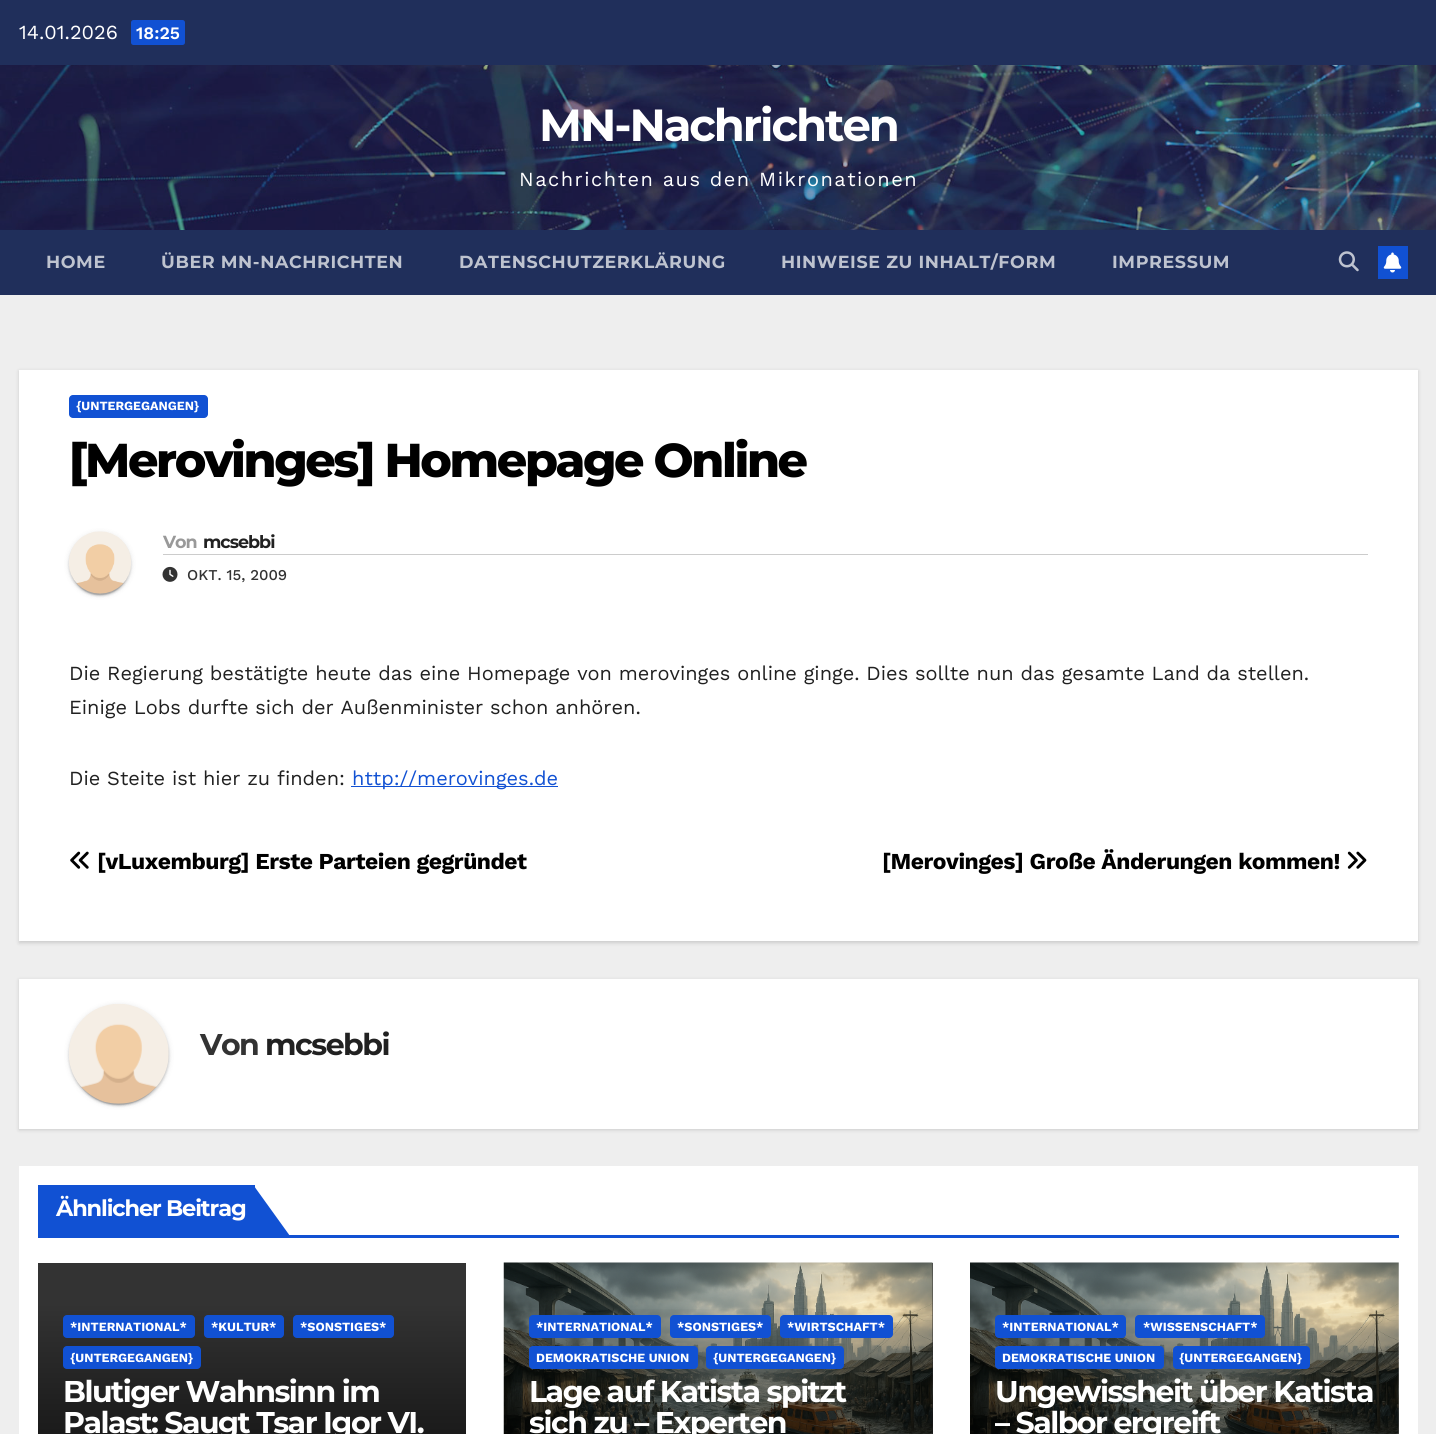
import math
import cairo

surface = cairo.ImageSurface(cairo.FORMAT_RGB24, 1436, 1434)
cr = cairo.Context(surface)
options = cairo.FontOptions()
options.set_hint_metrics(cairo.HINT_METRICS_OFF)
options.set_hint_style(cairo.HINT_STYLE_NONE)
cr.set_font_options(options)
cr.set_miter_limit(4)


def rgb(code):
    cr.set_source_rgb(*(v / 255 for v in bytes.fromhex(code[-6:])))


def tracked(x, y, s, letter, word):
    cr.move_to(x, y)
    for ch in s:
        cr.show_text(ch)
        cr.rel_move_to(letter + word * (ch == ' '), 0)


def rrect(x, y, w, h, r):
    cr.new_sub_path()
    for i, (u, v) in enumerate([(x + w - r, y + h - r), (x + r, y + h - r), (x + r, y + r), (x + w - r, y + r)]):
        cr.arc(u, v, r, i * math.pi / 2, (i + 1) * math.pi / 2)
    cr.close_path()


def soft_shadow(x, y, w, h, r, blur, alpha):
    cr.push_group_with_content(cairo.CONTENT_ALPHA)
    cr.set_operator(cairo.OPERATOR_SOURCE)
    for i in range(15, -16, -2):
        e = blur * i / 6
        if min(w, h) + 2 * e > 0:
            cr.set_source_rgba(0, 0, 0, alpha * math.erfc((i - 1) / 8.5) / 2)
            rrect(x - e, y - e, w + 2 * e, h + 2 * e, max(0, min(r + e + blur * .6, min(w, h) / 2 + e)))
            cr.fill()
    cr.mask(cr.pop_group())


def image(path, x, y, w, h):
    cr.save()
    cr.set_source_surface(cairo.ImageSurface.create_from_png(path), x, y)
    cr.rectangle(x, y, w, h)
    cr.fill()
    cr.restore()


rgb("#eeeeee")
cr.paint()
rgb("#202f5b")
cr.rectangle(0, 0, 1436, 65)
cr.fill()
rgb("#1151d3")
rrect(131, 20, 54, 25, 2.5)
cr.fill()
image("img/1.png", 0, 65, 1436, 165)
rgb("#202f5b")
cr.rectangle(0, 230, 1436, 65)
cr.fill()
image("img/2.png", 1338, 251, 21, 21)
rgb("#1151d3")
cr.rectangle(1378, 246, 30, 33)
cr.fill()
image("img/3.png", 1383, 252, 19, 21)
rgb("#000000")
soft_shadow(19, 371, 1399, 572, 0, 2, 0.15)
rgb("#ffffff")
cr.rectangle(19, 370, 1399, 571)
cr.fill()
rgb("#1151d3")
rrect(69, 395, 139, 23, 4)
cr.fill()
rgb("#000000")
soft_shadow(69, 533, 62, 62, 31, 3, 0.12)
soft_shadow(71, 538, 58, 57, 28.5, 0.5, 0.2)
soft_shadow(69, 534, 62, 62, 31, 1, 0.14)
image("img/4.png", 69, 531, 62, 63)
rgb("#cccccc")
cr.rectangle(163, 554, 1205, 1)
cr.fill()
image("img/5.png", 162, 566, 16, 16)
rgb("#1151d3")
cr.rectangle(351, 786, 207, 1)
cr.fill()
image("img/6.png", 70, 851, 19, 18)
image("img/7.png", 1347, 851, 20, 18)
rgb("#000000")
soft_shadow(19, 980, 1399, 150, 0, 2, 0.15)
rgb("#ffffff")
cr.rectangle(19, 979, 1399, 150)
cr.fill()
rgb("#000000")
soft_shadow(69, 1005, 100, 100, 50, 3, 0.12)
soft_shadow(71, 1010, 95, 95, 47.5, 0.5, 0.2)
soft_shadow(69, 1006, 100, 100, 50, 1, 0.14)
image("img/8.png", 69, 1004, 100, 100)
for x, y, w, h, color in [
    (19, 1166, 1399, 268, "#ffffff"),
    (38, 1235, 1361, 3, "#1151d3"),
    (38, 1185, 217, 50, "#1151d3"),
]:
    rgb(color)
    cr.rectangle(x, y, w, h)
    cr.fill()
cr.new_path()
cr.move_to(290, 1236)
cr.line_to(254, 1236)
cr.line_to(254, 1186)
cr.close_path()
cr.fill()
rgb("#333333")
cr.rectangle(38, 1263, 428, 40)
cr.fill()
gradient = cairo.LinearGradient(252, 1303, 252, 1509)
gradient.add_color_stop_rgba(0, 0.2, 0.2, 0.2, 1)
gradient.add_color_stop_rgba(0.5, 0.122, 0.122, 0.122, 1)
gradient.add_color_stop_rgba(1, 0.059, 0.059, 0.059, 1)
cr.set_source(gradient)
cr.rectangle(38, 1303, 428, 131)
cr.fill()
rgb("#1151d3")
rrect(63, 1315, 132, 23, 4)
cr.fill()
rrect(204, 1315, 80, 23, 4)
cr.fill()
rrect(293, 1315, 101, 23, 4)
cr.fill()
rrect(63, 1346, 138, 23, 4)
cr.fill()
rgb("#333333")
cr.rectangle(932, 1263, 1, 171)
cr.fill()
image("img/9.png", 503, 1262, 430, 172)
gradient = cairo.LinearGradient(718, 1303, 718, 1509)
gradient.add_color_stop_rgba(0, 0, 0, 0, 0)
gradient.add_color_stop_rgba(0.5, 0, 0, 0, 0.4)
gradient.add_color_stop_rgba(1, 0, 0, 0, 0.7)
cr.set_source(gradient)
cr.rectangle(504, 1309, 429, 125)
cr.fill()
rgb("#1151d3")
rrect(529, 1315, 132, 23, 4)
cr.fill()
rrect(670, 1315, 101, 23, 4)
cr.fill()
rrect(780, 1315, 113, 23, 4)
cr.fill()
rrect(529, 1346, 169, 23, 4)
cr.fill()
rrect(706, 1346, 138, 23, 4)
cr.fill()
image("img/10.png", 970, 1262, 429, 172)
gradient = cairo.LinearGradient(1184, 1303, 1184, 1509)
gradient.add_color_stop_rgba(0, 0, 0, 0, 0)
gradient.add_color_stop_rgba(0.5, 0, 0, 0, 0.4)
gradient.add_color_stop_rgba(1, 0, 0, 0, 0.7)
cr.set_source(gradient)
cr.rectangle(970, 1309, 429, 125)
cr.fill()
rgb("#1151d3")
rrect(995, 1315, 131, 23, 4)
cr.fill()
rrect(1135, 1315, 130, 23, 4)
cr.fill()
rrect(995, 1346, 169, 23, 4)
cr.fill()
rrect(1173, 1346, 137, 23, 4)
cr.fill()
cr.select_font_face("Work Sans")
cr.set_font_size(20)
rgb("#ffffff")
cr.move_to(19, 39)
cr.show_text("14.01.2026")
cr.select_font_face("Work Sans SemiBold")
cr.set_font_size(17.5)
cr.move_to(136, 39)
cr.show_text("18:25")
cr.select_font_face("Montserrat", cairo.FONT_SLANT_NORMAL, cairo.FONT_WEIGHT_BOLD)
cr.set_font_size(45)
tracked(539, 141, "MN-Nachrichten", -2.1, 0)
cr.select_font_face("Work Sans")
cr.set_font_size(20)
tracked(519, 186, "Nachrichten aus den Mikronationen", 1.5, 0)
cr.select_font_face("Montserrat", cairo.FONT_SLANT_NORMAL, cairo.FONT_WEIGHT_BOLD)
cr.set_font_size(17.5)
rgb("#bec3cf")
for x, y, s in [
    (46, 268, "HOME"),
    (161, 268, "ÜBER MN-NACHRICHTEN"),
    (459, 268, "DATENSCHUTZERKLÄRUNG"),
    (781, 268, "HINWEISE ZU INHALT/FORM"),
    (1112, 268, "IMPRESSUM"),
]:
    tracked(x, y, s, 0.6, 0)
cr.select_font_face("Work Sans", cairo.FONT_SLANT_NORMAL, cairo.FONT_WEIGHT_BOLD)
cr.set_font_size(12.5)
rgb("#ffffff")
cr.move_to(76, 410)
cr.show_text("{UNTERGEGANGEN}")
cr.select_font_face("Montserrat ExtraBold")
cr.set_font_size(47.5)
rgb("#000000")
tracked(69, 477, "[Merovinges] Homepage Online", -2.4, 0)
cr.select_font_face("Montserrat", cairo.FONT_SLANT_NORMAL, cairo.FONT_WEIGHT_BOLD)
cr.set_font_size(17.5)
rgb("#999999")
tracked(163, 548, "Von", -1, 0)
rgb("#212121")
tracked(203, 548, "mcsebbi", -1, 0)
cr.select_font_face("Work Sans Medium")
cr.set_font_size(15)
rgb("#333333")
cr.move_to(187, 580)
cr.show_text("OKT. 15, 2009")
cr.select_font_face("Work Sans")
cr.set_font_size(20)
rgb("#212121")
for x, y, s in [
    (69, 680, "Die Regierung bestätigte heute das eine Homepage von merovinges online ginge. Dies sollte nun das gesamte Land da stellen."),
    (69, 714, "Einige Lobs durfte sich der Außenminister schon anhören."),
    (69, 785, "Die Steite ist hier zu finden:"),
]:
    cr.move_to(x, y)
    cr.show_text(s)
rgb("#1151d3")
cr.move_to(352, 785)
cr.show_text("http://merovinges.de")
cr.select_font_face("Work Sans", cairo.FONT_SLANT_NORMAL, cairo.FONT_WEIGHT_BOLD)
cr.set_font_size(22.8)
rgb("#000000")
tracked(97, 869, "[vLuxemburg] Erste Parteien gegründet", -0.45, 0)
tracked(882, 869, "[Merovinges] Große Änderungen kommen!", -0.45, 0)
cr.select_font_face("Montserrat", cairo.FONT_SLANT_NORMAL, cairo.FONT_WEIGHT_BOLD)
cr.set_font_size(30)
rgb("#333333")
tracked(200, 1055, "Von", -1.5, 0)
rgb("#212121")
tracked(265, 1055, "mcsebbi", -1.5, 0)
cr.set_font_size(22.5)
rgb("#ffffff")
tracked(56, 1216, "Ähnlicher Beitrag", -1.1, 0)
cr.select_font_face("Work Sans", cairo.FONT_SLANT_NORMAL, cairo.FONT_WEIGHT_BOLD)
cr.set_font_size(12.5)
for x, y, s in [
    (70, 1331, "*INTERNATIONAL*"),
    (211, 1331, "*KULTUR*"),
    (300, 1331, "*SONSTIGES*"),
    (70, 1362, "{UNTERGEGANGEN}"),
]:
    cr.move_to(x, y)
    cr.show_text(s)
cr.select_font_face("Montserrat", cairo.FONT_SLANT_NORMAL, cairo.FONT_WEIGHT_BOLD)
cr.set_font_size(30)
tracked(63, 1402, "Blutiger Wahnsinn im", -1.5, 0)
tracked(63, 1433, "Palast: Saugt Tsar Igor VI.", -1.5, 0)
cr.select_font_face("Work Sans", cairo.FONT_SLANT_NORMAL, cairo.FONT_WEIGHT_BOLD)
cr.set_font_size(12.5)
for x, y, s in [
    (536, 1331, "*INTERNATIONAL*"),
    (677, 1331, "*SONSTIGES*"),
    (787, 1331, "*WIRTSCHAFT*"),
    (536, 1362, "DEMOKRATISCHE UNION"),
    (713, 1362, "{UNTERGEGANGEN}"),
]:
    cr.move_to(x, y)
    cr.show_text(s)
cr.select_font_face("Montserrat", cairo.FONT_SLANT_NORMAL, cairo.FONT_WEIGHT_BOLD)
cr.set_font_size(30)
tracked(529, 1402, "Lage auf Katista spitzt", -1.5, 0)
tracked(529, 1433, "sich zu – Experten", -1.5, 0)
cr.select_font_face("Work Sans", cairo.FONT_SLANT_NORMAL, cairo.FONT_WEIGHT_BOLD)
cr.set_font_size(12.5)
for x, y, s in [
    (1002, 1331, "*INTERNATIONAL*"),
    (1143, 1331, "*WISSENSCHAFT*"),
    (1002, 1362, "DEMOKRATISCHE UNION"),
    (1179, 1362, "{UNTERGEGANGEN}"),
]:
    cr.move_to(x, y)
    cr.show_text(s)
cr.select_font_face("Montserrat", cairo.FONT_SLANT_NORMAL, cairo.FONT_WEIGHT_BOLD)
cr.set_font_size(30)
tracked(995, 1402, "Ungewissheit über Katista", -1.5, 0)
cr.save()
cr.rectangle(995, 1375, 379, 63)
cr.clip()
tracked(995, 1433, "– Salbor ergreift", -1.5, 0)
cr.restore()
surface.write_to_png("page.png")
